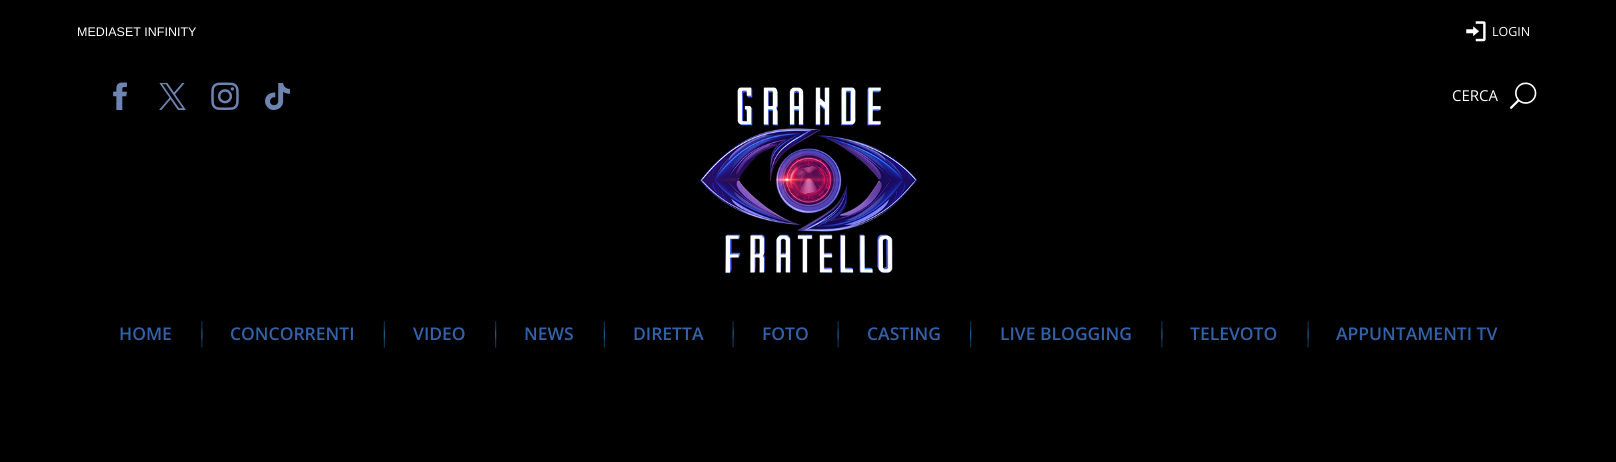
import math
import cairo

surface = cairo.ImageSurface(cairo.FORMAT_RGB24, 1616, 462)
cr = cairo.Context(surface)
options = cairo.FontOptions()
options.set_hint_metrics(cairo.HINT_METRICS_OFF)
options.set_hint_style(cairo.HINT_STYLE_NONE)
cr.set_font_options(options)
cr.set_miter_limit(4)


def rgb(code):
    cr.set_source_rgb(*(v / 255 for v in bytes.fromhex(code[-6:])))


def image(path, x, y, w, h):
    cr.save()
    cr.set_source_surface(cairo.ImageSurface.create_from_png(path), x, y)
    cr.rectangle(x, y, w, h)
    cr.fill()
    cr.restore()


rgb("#000000")
cr.paint()
image("img/1.png", 1466, 21, 20, 21)
image("img/2.png", 113, 82, 14, 28)
image("img/3.png", 159, 83, 27, 27)
image("img/4.png", 211, 82, 28, 28)
image("img/5.png", 265, 83, 25, 27)
image("img/6.png", 1510, 82, 27, 27)
image("img/7.png", 201, 321, 2, 27)
image("img/8.png", 383, 321, 2, 27)
image("img/9.png", 495, 321, 2, 27)
image("img/8.png", 603, 321, 2, 27)
image("img/10.png", 732, 321, 2, 27)
image("img/10.png", 837, 321, 2, 27)
image("img/9.png", 970, 321, 2, 27)
image("img/7.png", 1161, 321, 2, 27)
image("img/10.png", 1307, 321, 2, 27)
image("img/11.png", 700, 87, 218, 187)
cr.select_font_face("Liberation Sans")
cr.set_font_size(12.5)
rgb("#ffffff")
cr.move_to(77, 36)
cr.show_text("MEDIASET INFINITY")
cr.select_font_face("Open Sans")
cr.move_to(1492, 36)
cr.show_text("LOGIN")
cr.set_font_size(15)
cr.move_to(1452, 101)
cr.show_text("CERCA")
cr.select_font_face("Open Sans SemiBold")
cr.set_font_size(17.5)
rgb("#3362a8")
for x, y, s in [
    (119, 340, "HOME"),
    (230, 340, "CONCORRENTI"),
    (413, 340, "VIDEO"),
    (524, 340, "NEWS"),
    (633, 340, "DIRETTA"),
    (762, 340, "FOTO"),
    (867, 340, "CASTING"),
    (1000, 340, "LIVE BLOGGING"),
    (1190, 340, "TELEVOTO"),
    (1336, 340, "APPUNTAMENTI TV"),
]:
    cr.move_to(x, y)
    cr.show_text(s)
surface.write_to_png("page.png")
